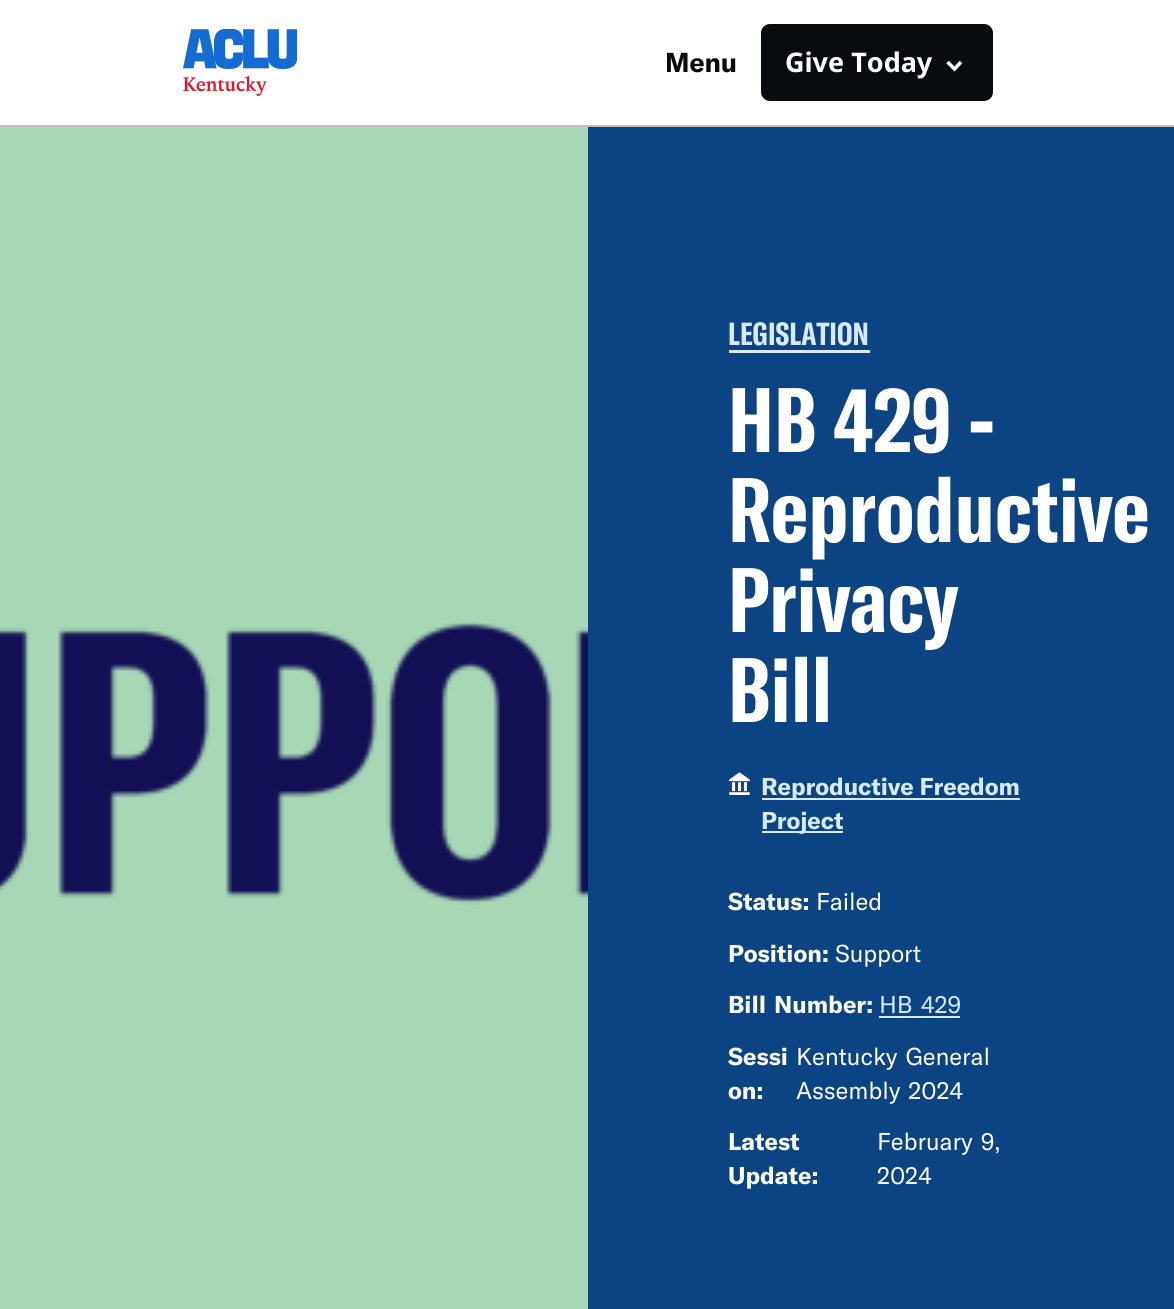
import math
import cairo

surface = cairo.ImageSurface(cairo.FORMAT_RGB24, 1174, 1309)
cr = cairo.Context(surface)
options = cairo.FontOptions()
options.set_hint_metrics(cairo.HINT_METRICS_OFF)
options.set_hint_style(cairo.HINT_STYLE_NONE)
cr.set_font_options(options)
cr.set_miter_limit(4)


def rgb(code):
    cr.set_source_rgb(*(v / 255 for v in bytes.fromhex(code[-6:])))


def tracked(x, y, s, letter, word):
    cr.move_to(x, y)
    for ch in s:
        cr.show_text(ch)
        cr.rel_move_to(letter + word * (ch == ' '), 0)


def rrect(x, y, w, h, r):
    cr.new_sub_path()
    for i, (u, v) in enumerate([(x + w - r, y + h - r), (x + r, y + h - r), (x + r, y + r), (x + w - r, y + r)]):
        cr.arc(u, v, r, i * math.pi / 2, (i + 1) * math.pi / 2)
    cr.close_path()


def image(path, x, y, w, h):
    cr.save()
    cr.set_source_surface(cairo.ImageSurface.create_from_png(path), x, y)
    cr.rectangle(x, y, w, h)
    cr.fill()
    cr.restore()


rgb("#ffffff")
cr.paint()
rgb("#bfbfbf")
cr.rectangle(0, 125, 1174, 2)
cr.fill()
image("img/1.png", 183, 29, 114, 67)
rgb("#090c0f")
rrect(761, 24, 232, 77, 9)
cr.fill()
cr.new_path()
cr.move_to(947.5, 62)
cr.line_to(954.5, 69)
cr.line_to(961, 62)
rgb("#ffffff")
cr.set_line_width(3.5)
cr.stroke()
image("img/2.png", 0, 127, 588, 1182)
rgb("#0c4383")
cr.rectangle(588, 127, 586, 1182)
cr.fill()
rgb("#d9e9fc")
cr.rectangle(729, 350, 141, 3)
cr.fill()
image("img/3.png", 729, 772, 21, 23)
for x, y, w, h, color in [
    (762, 798, 258, 2, "#d9e9fc"),
    (762, 831, 81, 2, "#d9e9fc"),
    (879, 1016, 81, 2, "#d9e9fc"),
]:
    rgb(color)
    cr.rectangle(x, y, w, h)
    cr.fill()
cr.select_font_face("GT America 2", cairo.FONT_SLANT_NORMAL, cairo.FONT_WEIGHT_BOLD)
cr.set_font_size(27)
rgb("#090c0f")
tracked(665, 72, "Menu", -0.1, 0)
cr.select_font_face("Noto Sans", cairo.FONT_SLANT_NORMAL, cairo.FONT_WEIGHT_BOLD)
rgb("#ffffff")
cr.move_to(785, 72)
cr.show_text("Give Today")
cr.select_font_face("GT America", cairo.FONT_SLANT_NORMAL, cairo.FONT_WEIGHT_BOLD)
cr.set_font_size(31.5)
rgb("#d9e9fc")
tracked(728, 345, "LEGISLATION", 0.1, 0)
cr.set_font_size(90)
rgb("#ffffff")
tracked(728, 452, "HB 429 -", 0.1, 2)
for x, y, s in [
    (728, 542, "Reproductive"),
    (728, 632, "Privacy"),
    (728, 722, "Bill"),
]:
    tracked(x, y, s, 0.1, 0)
cr.select_font_face("GT America 2", cairo.FONT_SLANT_NORMAL, cairo.FONT_WEIGHT_BOLD)
cr.set_font_size(24)
rgb("#d9e9fc")
tracked(761, 795, "Reproductive Freedom", -0.1, 0)
tracked(761, 829, "Project", -0.1, 0)
rgb("#ffffff")
cr.move_to(728, 910)
cr.show_text("Status:")
cr.select_font_face("GT America")
tracked(816, 910, "Failed", -0.1, 0)
cr.select_font_face("GT America 2", cairo.FONT_SLANT_NORMAL, cairo.FONT_WEIGHT_BOLD)
cr.move_to(728, 962)
cr.show_text("Position:")
cr.select_font_face("GT America")
tracked(835, 962, "Support", -0.1, 0)
cr.select_font_face("GT America 2", cairo.FONT_SLANT_NORMAL, cairo.FONT_WEIGHT_BOLD)
tracked(728, 1013, "Bill Number:", 0, 2)
cr.select_font_face("GT America")
rgb("#d9e9fc")
tracked(879, 1013, "HB 429", -0.1, 2)
cr.select_font_face("GT America 2", cairo.FONT_SLANT_NORMAL, cairo.FONT_WEIGHT_BOLD)
rgb("#ffffff")
cr.move_to(728, 1065)
cr.show_text("Sessi")
cr.move_to(728, 1099)
cr.show_text("on:")
cr.select_font_face("GT America")
tracked(796, 1065, "Kentucky General", -0.1, 2)
tracked(796, 1099, "Assembly 2024", -0.1, 2)
cr.select_font_face("GT America 2", cairo.FONT_SLANT_NORMAL, cairo.FONT_WEIGHT_BOLD)
cr.move_to(728, 1150)
cr.show_text("Latest")
cr.move_to(728, 1184)
cr.show_text("Update:")
cr.select_font_face("GT America")
tracked(877, 1150, "February 9,", -0.1, 2)
tracked(877, 1184, "2024", -0.1, 0)
surface.write_to_png("page.png")
